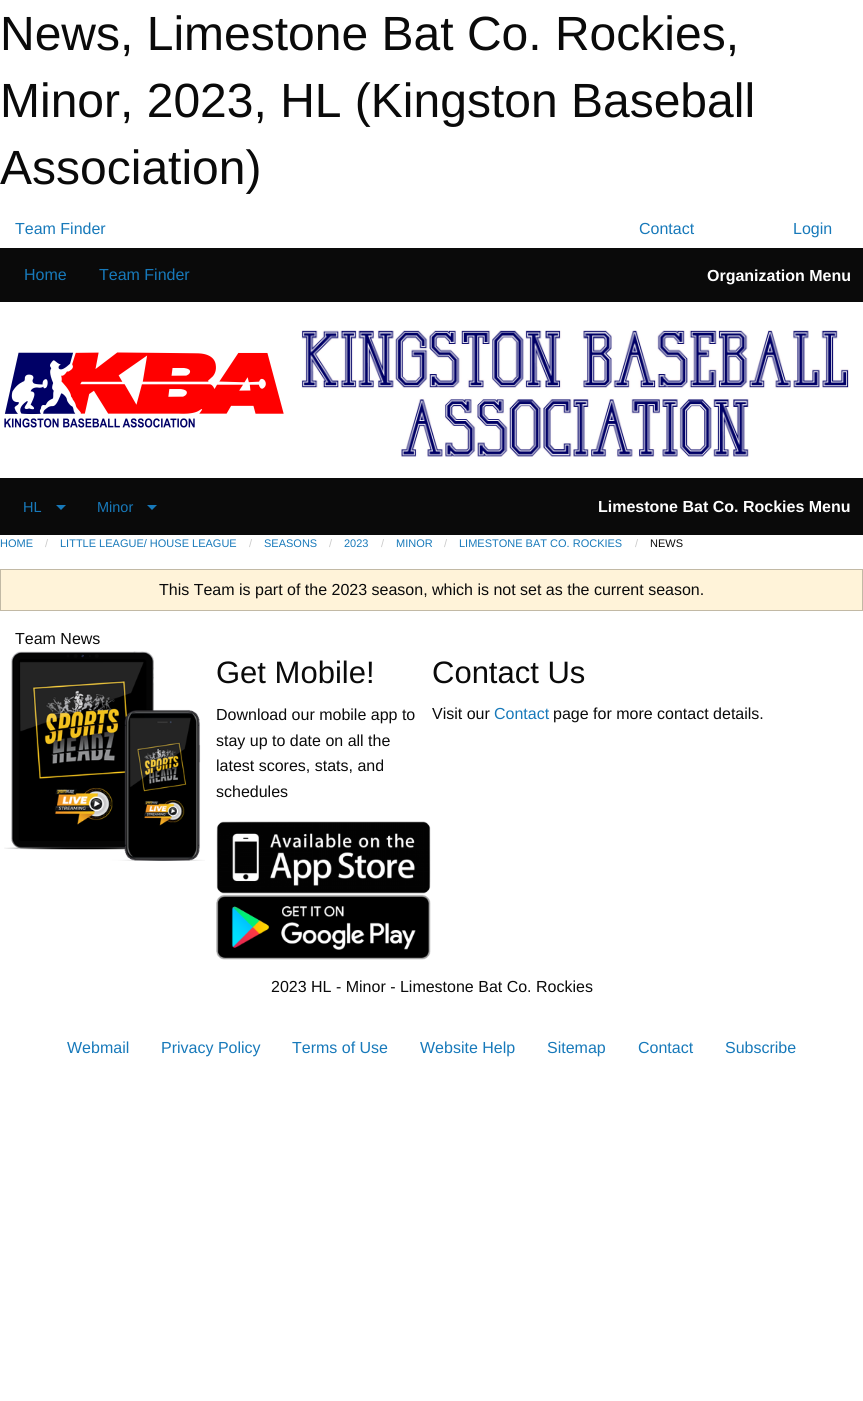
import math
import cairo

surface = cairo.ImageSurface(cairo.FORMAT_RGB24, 863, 1401)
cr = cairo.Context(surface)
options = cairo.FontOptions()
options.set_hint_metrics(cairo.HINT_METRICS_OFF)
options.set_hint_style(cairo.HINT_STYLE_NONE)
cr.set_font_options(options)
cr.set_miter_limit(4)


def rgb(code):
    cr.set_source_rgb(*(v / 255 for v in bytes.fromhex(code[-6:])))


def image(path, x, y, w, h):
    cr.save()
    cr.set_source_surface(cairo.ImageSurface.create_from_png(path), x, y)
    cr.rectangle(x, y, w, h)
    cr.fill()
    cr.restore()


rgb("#ffffff")
cr.paint()
rgb("#0a0a0a")
cr.rectangle(0, 248, 863, 54)
cr.fill()
image("img/1.png", 4, 352, 280, 76)
image("img/2.png", 301, 330, 548, 127)
cr.rectangle(0, 478, 863, 57)
cr.fill()
rgb("#1779ba")
cr.new_path()
cr.move_to(56, 505)
cr.line_to(66, 505)
cr.line_to(61, 510)
cr.close_path()
cr.fill()
cr.new_path()
cr.move_to(147, 505)
cr.line_to(157, 505)
cr.line_to(152, 510)
cr.close_path()
cr.fill()
rgb("#fff3d9")
cr.rectangle(0.5, 569.5, 862, 41)
cr.fill_preserve()
rgb("#c2b9a5")
cr.set_line_width(1)
cr.stroke()
image("img/3.png", 4, 651, 201, 210)
image("img/4.png", 216, 821, 215, 73)
image("img/5.png", 216, 894, 215, 66)
cr.select_font_face("Liberation Sans")
cr.set_font_size(48)
rgb("#0a0a0a")
for x, y, s in [
    (0, 50, "News, Limestone Bat Co. Rockies,"),
    (0, 117, "Minor, 2023, HL (Kingston Baseball"),
    (0, 184, "Association)"),
]:
    cr.move_to(x, y)
    cr.show_text(s)
cr.set_font_size(16)
rgb("#1779ba")
for x, y, s in [
    (15, 234, "Team Finder"),
    (639, 234, "Contact"),
    (793, 234, "Login"),
    (24, 280, "Home"),
    (99, 280, "Team Finder"),
]:
    cr.move_to(x, y)
    cr.show_text(s)
cr.select_font_face("Liberation Sans", cairo.FONT_SLANT_NORMAL, cairo.FONT_WEIGHT_BOLD)
rgb("#fefefe")
cr.move_to(707, 281)
cr.show_text("Organization Menu")
cr.select_font_face("Liberation Sans")
cr.set_font_size(14.5)
rgb("#1779ba")
cr.move_to(23, 512)
cr.show_text("HL")
cr.move_to(97, 512)
cr.show_text("Minor")
cr.select_font_face("Liberation Sans", cairo.FONT_SLANT_NORMAL, cairo.FONT_WEIGHT_BOLD)
cr.set_font_size(16)
rgb("#fefefe")
cr.move_to(598, 512)
cr.show_text("Limestone Bat Co. Rockies Menu")
cr.select_font_face("Liberation Sans")
cr.set_font_size(11)
rgb("#1779ba")
cr.move_to(0, 547)
cr.show_text("HOME")
rgb("#cacaca")
cr.move_to(45, 547)
cr.show_text("/")
rgb("#1779ba")
cr.move_to(60, 547)
cr.show_text("LITTLE LEAGUE/ HOUSE LEAGUE")
rgb("#cacaca")
cr.move_to(249, 547)
cr.show_text("/")
rgb("#1779ba")
cr.move_to(264, 547)
cr.show_text("SEASONS")
rgb("#cacaca")
cr.move_to(329, 547)
cr.show_text("/")
rgb("#1779ba")
cr.move_to(344, 547)
cr.show_text("2023")
rgb("#cacaca")
cr.move_to(381, 547)
cr.show_text("/")
rgb("#1779ba")
cr.move_to(396, 547)
cr.show_text("MINOR")
rgb("#cacaca")
cr.move_to(444, 547)
cr.show_text("/")
rgb("#1779ba")
cr.move_to(459, 547)
cr.show_text("LIMESTONE BAT CO. ROCKIES")
rgb("#cacaca")
cr.move_to(635, 547)
cr.show_text("/")
rgb("#0a0a0a")
cr.move_to(650, 547)
cr.show_text("NEWS")
cr.set_font_size(16)
cr.move_to(159, 595)
cr.show_text("This Team is part of the 2023 season, which is not set as the current season.")
cr.move_to(15, 644)
cr.show_text("Team News")
cr.set_font_size(31)
cr.move_to(216, 683)
cr.show_text("Get Mobile!")
cr.set_font_size(16)
for x, y, s in [
    (216, 720, "Download our mobile app to"),
    (216, 746, "stay up to date on all the"),
    (216, 771, "latest scores, stats, and"),
    (216, 797, "schedules"),
]:
    cr.move_to(x, y)
    cr.show_text(s)
cr.set_font_size(31)
cr.move_to(432, 683)
cr.show_text("Contact Us")
cr.set_font_size(16)
cr.move_to(432, 719)
cr.show_text("Visit our")
rgb("#1779ba")
cr.move_to(494, 719)
cr.show_text("Contact")
rgb("#0a0a0a")
cr.move_to(553, 719)
cr.show_text("page for more contact details.")
cr.move_to(271, 992)
cr.show_text("2023 HL - Minor - Limestone Bat Co. Rockies")
rgb("#1779ba")
for x, y, s in [
    (67, 1053, "Webmail"),
    (161, 1053, "Privacy Policy"),
    (292, 1053, "Terms of Use"),
    (420, 1053, "Website Help"),
    (547, 1053, "Sitemap"),
    (638, 1053, "Contact"),
    (725, 1053, "Subscribe"),
]:
    cr.move_to(x, y)
    cr.show_text(s)
surface.write_to_png("page.png")
